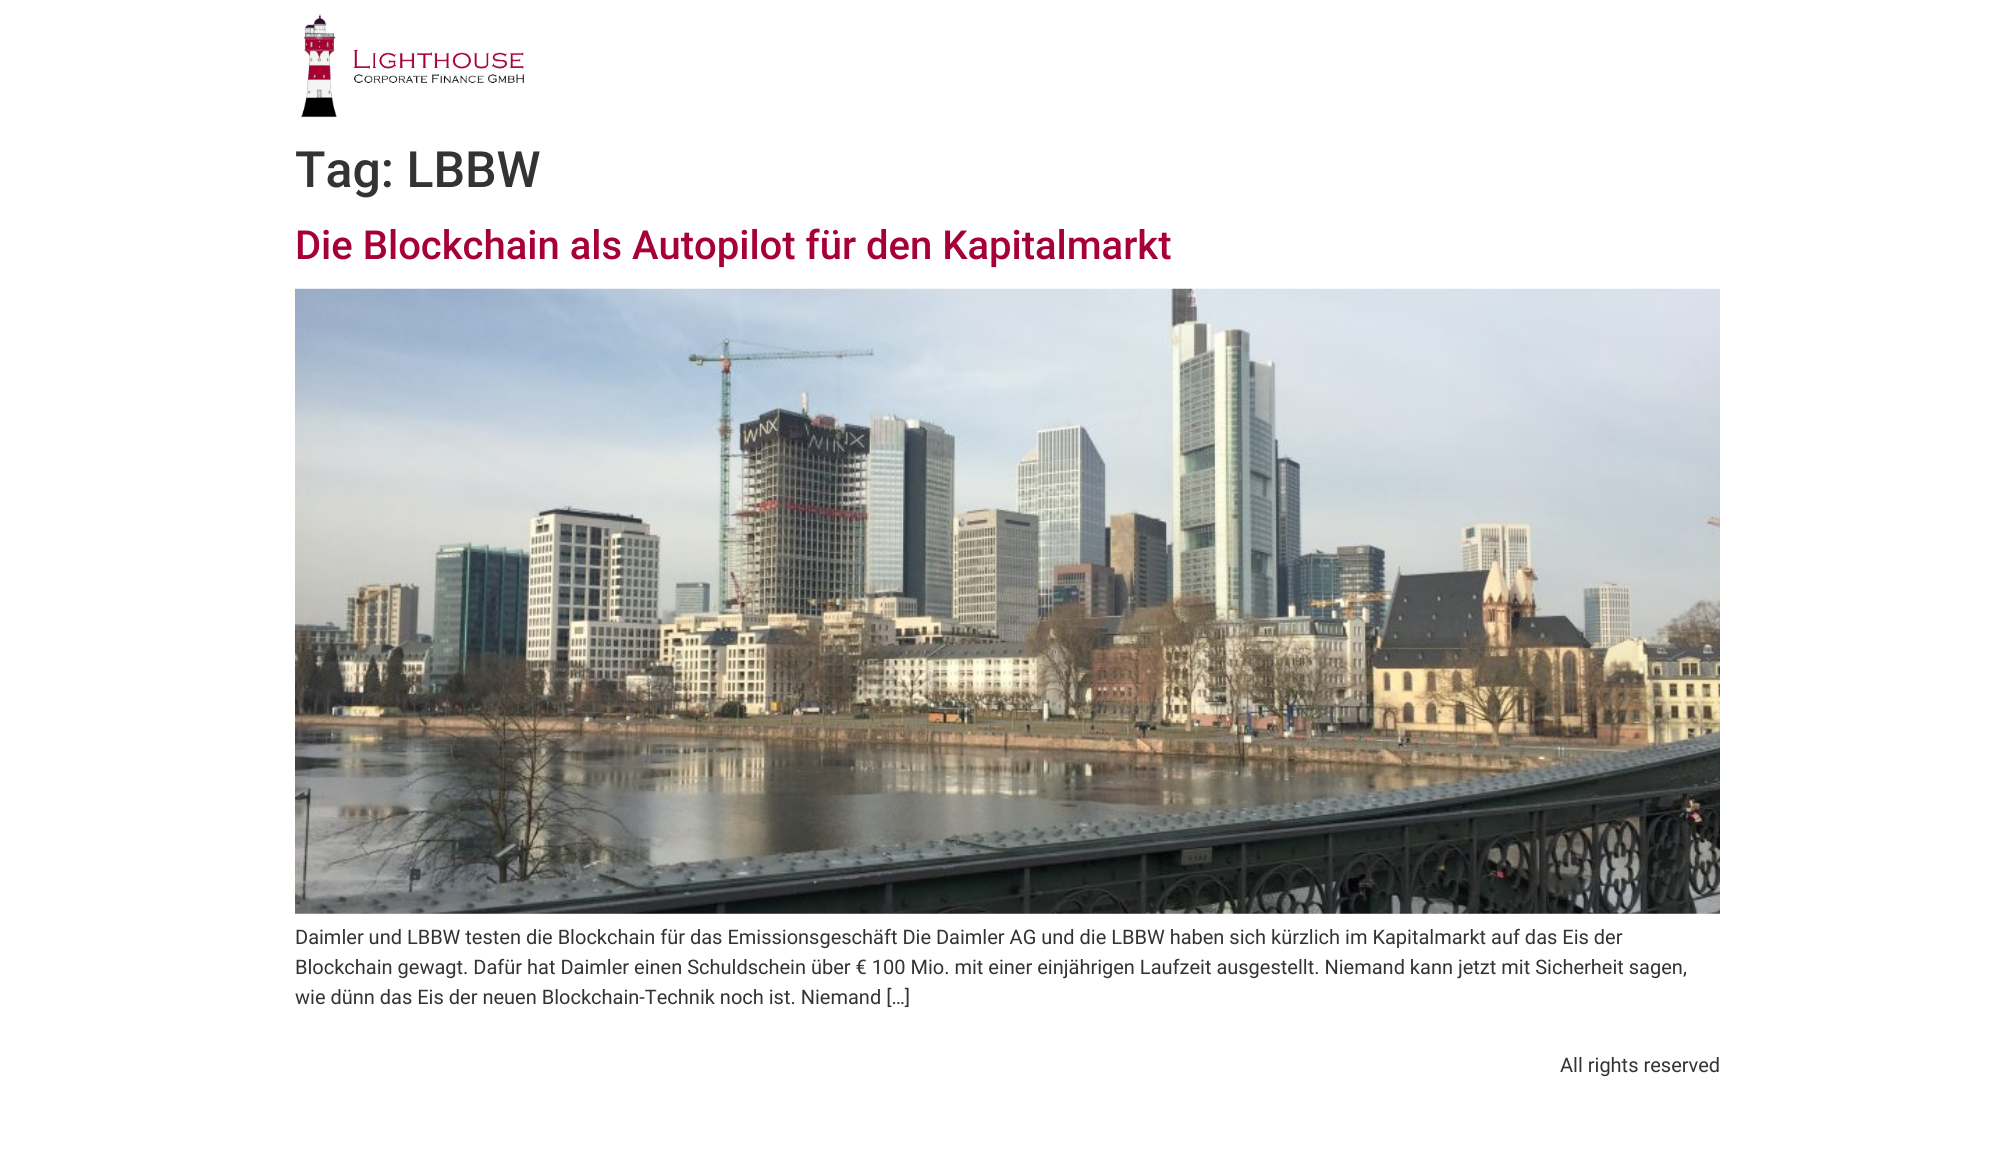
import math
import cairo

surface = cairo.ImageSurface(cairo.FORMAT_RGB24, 2014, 1152)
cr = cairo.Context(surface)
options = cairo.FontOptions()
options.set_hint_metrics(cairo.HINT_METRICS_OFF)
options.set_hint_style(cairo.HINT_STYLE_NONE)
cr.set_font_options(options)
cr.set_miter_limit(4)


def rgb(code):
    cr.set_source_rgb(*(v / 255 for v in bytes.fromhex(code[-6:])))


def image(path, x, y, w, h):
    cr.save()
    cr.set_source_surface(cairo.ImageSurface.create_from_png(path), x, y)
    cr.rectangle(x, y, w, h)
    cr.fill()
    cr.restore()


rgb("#ffffff")
cr.paint()
image("img/1.png", 301, 14, 224, 104)
image("img/2.png", 295, 288, 1425, 626)
cr.select_font_face("Roboto Medium")
cr.set_font_size(50)
rgb("#333333")
cr.move_to(295, 187)
cr.show_text("Tag: LBBW")
cr.set_font_size(40)
rgb("#a60037")
cr.move_to(295, 259)
cr.show_text("Die Blockchain als Autopilot für den Kapitalmarkt")
cr.select_font_face("Roboto")
cr.set_font_size(20)
rgb("#333333")
for x, y, s in [
    (295, 944, "Daimler und LBBW testen die Blockchain für das Emissionsgeschäft Die Daimler AG und die LBBW haben sich kürzlich im Kapitalmarkt auf das Eis der"),
    (295, 974, "Blockchain gewagt. Dafür hat Daimler einen Schuldschein über € 100 Mio. mit einer einjährigen Laufzeit ausgestellt. Niemand kann jetzt mit Sicherheit sagen,"),
    (295, 1004, "wie dünn das Eis der neuen Blockchain-Technik noch ist. Niemand […]"),
    (1560, 1072, "All rights reserved"),
]:
    cr.move_to(x, y)
    cr.show_text(s)
surface.write_to_png("page.png")
